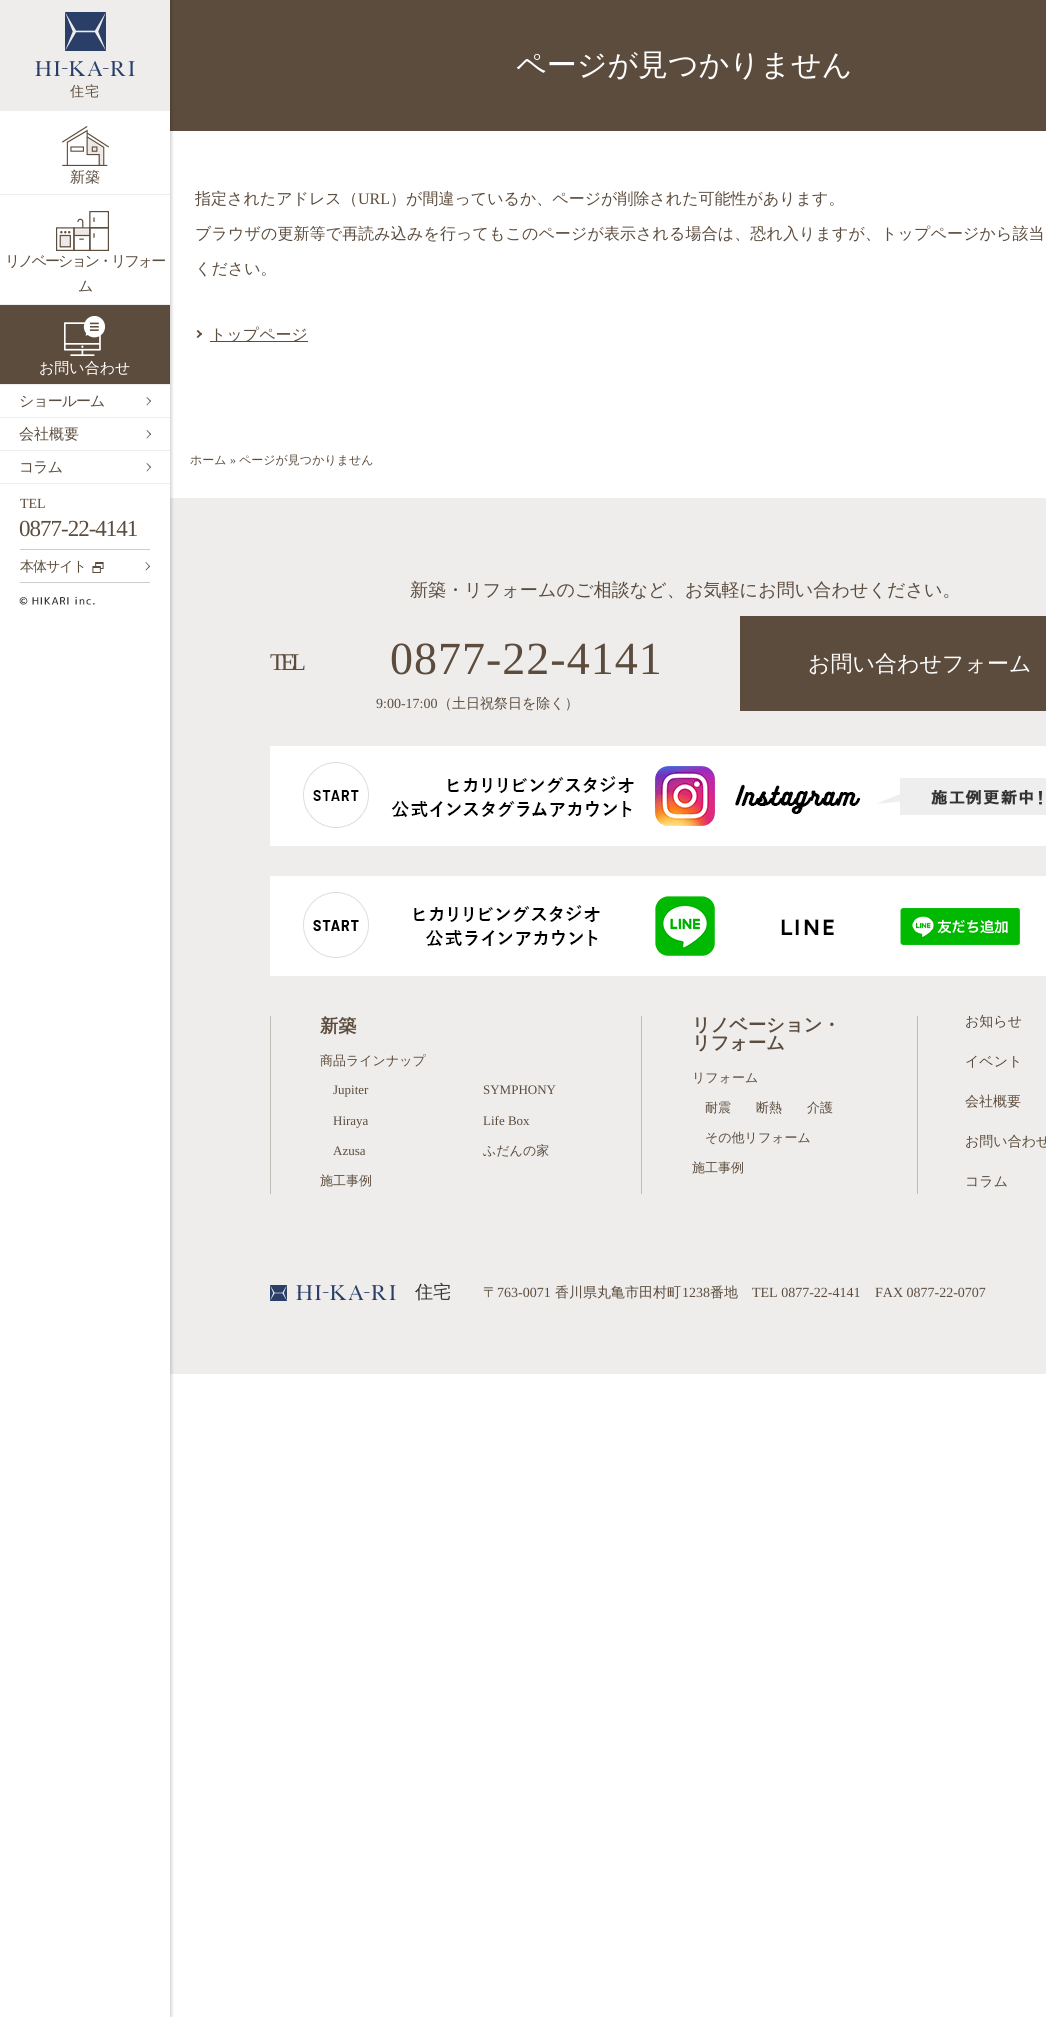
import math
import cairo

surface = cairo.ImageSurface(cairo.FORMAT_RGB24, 1046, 2017)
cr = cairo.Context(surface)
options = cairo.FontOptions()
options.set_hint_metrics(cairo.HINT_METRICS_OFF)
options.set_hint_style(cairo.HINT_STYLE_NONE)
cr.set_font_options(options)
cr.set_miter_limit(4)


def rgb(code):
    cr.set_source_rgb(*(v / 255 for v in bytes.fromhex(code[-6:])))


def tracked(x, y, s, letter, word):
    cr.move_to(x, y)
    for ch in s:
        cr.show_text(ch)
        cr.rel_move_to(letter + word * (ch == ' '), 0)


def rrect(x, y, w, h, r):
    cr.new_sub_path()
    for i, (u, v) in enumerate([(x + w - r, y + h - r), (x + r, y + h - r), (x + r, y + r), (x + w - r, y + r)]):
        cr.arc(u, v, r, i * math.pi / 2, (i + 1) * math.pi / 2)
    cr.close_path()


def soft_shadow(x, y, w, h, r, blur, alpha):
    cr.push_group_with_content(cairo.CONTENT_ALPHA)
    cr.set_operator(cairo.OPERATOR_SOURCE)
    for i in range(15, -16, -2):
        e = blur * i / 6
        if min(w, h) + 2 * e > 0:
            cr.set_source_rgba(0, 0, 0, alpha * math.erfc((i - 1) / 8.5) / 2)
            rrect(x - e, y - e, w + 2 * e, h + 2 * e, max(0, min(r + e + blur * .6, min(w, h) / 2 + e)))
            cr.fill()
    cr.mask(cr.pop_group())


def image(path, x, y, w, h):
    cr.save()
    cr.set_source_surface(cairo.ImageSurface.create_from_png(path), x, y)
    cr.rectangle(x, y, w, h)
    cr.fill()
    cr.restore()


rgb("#ffffff")
cr.paint()
rgb("#5c4c3d")
cr.rectangle(170, 0, 876, 131)
cr.fill()
rgb("#eeedeb")
cr.rectangle(170, 498, 876, 876)
cr.fill()
cr.save()
cr.rectangle(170, 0, 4, 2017)
cr.clip()
rgb("#000000")
soft_shadow(0, 0, 170, 2017, 0, 2.5, 0.33)
cr.restore()
cr.rectangle(0, 0, 170, 110)
cr.fill()
image("img/1.png", 35, 12, 100, 64)
rgb("#eeeeee")
cr.rectangle(0, 483, 170, 1)
cr.fill()
cr.rectangle(0, 110, 170, 1)
cr.fill()
image("img/2.png", 62, 126, 47, 40)
cr.rectangle(0, 194, 170, 1)
cr.fill()
image("img/3.png", 56, 211, 53, 40)
cr.rectangle(0, 304, 170, 1)
cr.fill()
rgb("#5c4c3d")
cr.rectangle(0, 305, 170, 79)
cr.fill()
image("img/4.png", 64, 316, 41, 40)
rgb("#eeeeee")
cr.rectangle(0, 384, 170, 1)
cr.fill()
rgb("#5c4c3d")
cr.new_path()
cr.move_to(147, 397)
cr.line_to(151, 401)
cr.line_to(150.5, 402)
cr.line_to(146.5, 397.5)
cr.close_path()
cr.fill()
cr.new_path()
cr.move_to(150.5, 400.5)
cr.line_to(151, 401)
cr.line_to(147, 405.5)
cr.line_to(146.5, 405)
cr.close_path()
cr.fill()
rgb("#eeeeee")
cr.rectangle(0, 417, 170, 1)
cr.fill()
rgb("#5c4c3d")
cr.new_path()
cr.move_to(147, 430)
cr.line_to(151, 434)
cr.line_to(150.5, 435)
cr.line_to(146.5, 430.5)
cr.close_path()
cr.fill()
cr.new_path()
cr.move_to(150.5, 433.5)
cr.line_to(151, 434)
cr.line_to(147, 438.5)
cr.line_to(146.5, 438)
cr.close_path()
cr.fill()
rgb("#eeeeee")
cr.rectangle(0, 450, 170, 1)
cr.fill()
rgb("#5c4c3d")
cr.new_path()
cr.move_to(147, 463)
cr.line_to(151, 467)
cr.line_to(150.5, 468)
cr.line_to(146.5, 463.5)
cr.close_path()
cr.fill()
cr.new_path()
cr.move_to(150.5, 466.5)
cr.line_to(151, 467)
cr.line_to(147, 471.5)
cr.line_to(146.5, 471)
cr.close_path()
cr.fill()
rgb("#cccccc")
cr.rectangle(20, 549, 130, 1)
cr.fill()
cr.rectangle(20, 582, 130, 1)
cr.fill()
image("img/5.png", 92, 562, 12, 11)
rgb("#5c4c3d")
cr.new_path()
cr.move_to(146, 562)
cr.line_to(150, 566.5)
cr.line_to(149.5, 567)
cr.line_to(145.5, 562.5)
cr.close_path()
cr.fill()
cr.new_path()
cr.move_to(149.5, 565.5)
cr.line_to(150, 566.5)
cr.line_to(146, 570.5)
cr.line_to(145.5, 570)
cr.close_path()
cr.fill()
image("img/6.png", 19, 597, 76, 8)
cr.new_path()
cr.move_to(198, 330)
cr.line_to(202, 334)
cr.line_to(201, 335.5)
cr.line_to(196.5, 331)
cr.close_path()
cr.fill()
cr.new_path()
cr.move_to(201, 332.5)
cr.line_to(202, 334)
cr.line_to(198, 338)
cr.line_to(196.5, 337)
cr.close_path()
cr.fill()
cr.rectangle(210, 341, 98, 1)
cr.fill()
cr.rectangle(740, 616, 306, 95)
cr.fill()
image("img/7.png", 270, 746, 776, 100)
image("img/8.png", 270, 876, 776, 100)
for x, y, w, h, color in [
    (270, 1016, 1, 178, "#c2bcb6"),
    (641, 1016, 1, 178, "#c2bcb6"),
    (917, 1016, 1, 178, "#c2bcb6"),
]:
    rgb(color)
    cr.rectangle(x, y, w, h)
    cr.fill()
image("img/9.png", 270, 1285, 126, 16)
cr.select_font_face("WenQuanYi Zen Hei Medium")
cr.set_font_size(14)
rgb("#5c4c3d")
tracked(70, 96, "住宅", 1, 0)
cr.set_font_size(15)
cr.move_to(70, 182)
cr.show_text("新築")
tracked(5, 266, "リノベーション・リフォー", -2, 0)
tracked(78, 291, "ム", -2, 0)
rgb("#ffffff")
cr.move_to(39, 373)
cr.show_text("お問い合わせ")
rgb("#5c4c3d")
tracked(19, 406, "ショールーム", -1, 0)
cr.move_to(19, 439)
cr.show_text("会社概要")
tracked(19, 472, "コラム", -1, 0)
cr.select_font_face("Liberation Serif")
cr.set_font_size(14)
cr.move_to(20, 508)
cr.show_text("TEL")
cr.set_font_size(23)
tracked(19, 536, "0877-22-4141", -1, 0)
cr.select_font_face("WenQuanYi Zen Hei Medium")
cr.set_font_size(14)
tracked(20, 571, "本体サイト", -1, 0)
cr.set_font_size(30)
rgb("#ffffff")
cr.move_to(516, 75)
cr.show_text("ページが見つかりません")
cr.set_font_size(16)
rgb("#5c4c3d")
cr.move_to(195, 204)
cr.show_text("指定されたアドレス（")
cr.select_font_face("Liberation Serif")
cr.move_to(358, 204)
cr.show_text("URL")
cr.select_font_face("WenQuanYi Zen Hei Medium")
cr.move_to(390, 204)
cr.show_text("）が間違っているか、ページが削除された可能性があります。")
tracked(195, 239, "ブラウザの更新等で再読み込みを行ってもこのページが表示される場合は、恐れ入りますが、トップページから該当", 0.1, 0)
cr.move_to(195, 274)
cr.show_text("ください。")
cr.move_to(210, 340)
cr.show_text("トップページ")
cr.set_font_size(12)
cr.move_to(190, 464)
cr.show_text("ホーム")
cr.select_font_face("Liberation Serif")
cr.move_to(230, 464)
cr.show_text("»")
cr.select_font_face("WenQuanYi Zen Hei Medium")
cr.move_to(239, 464)
cr.show_text("ページが見つかりません")
cr.set_font_size(18.1)
cr.move_to(410, 596)
cr.show_text("新築・リフォームのご相談など、お気軽にお問い合わせください。")
cr.select_font_face("Liberation Serif")
cr.set_font_size(24)
tracked(270, 670, "TEL", -4, 0)
cr.set_font_size(46)
tracked(390, 674, "0877-22-4141", 1, 0)
cr.select_font_face("WenQuanYi Zen Hei Medium")
cr.set_font_size(22)
rgb("#ffffff")
cr.move_to(808, 671)
cr.show_text("お問い合わせフォーム")
cr.select_font_face("Liberation Serif")
cr.set_font_size(14)
rgb("#5c4c3d")
cr.move_to(376, 708)
cr.show_text("9:00-17:00")
cr.select_font_face("WenQuanYi Zen Hei Medium")
cr.move_to(438, 708)
cr.show_text("（土日祝祭日を除く）")
cr.select_font_face("WenQuanYi Zen Hei", cairo.FONT_SLANT_NORMAL, cairo.FONT_WEIGHT_BOLD)
cr.set_font_size(18.25)
cr.move_to(320, 1032)
cr.show_text("新築")
cr.select_font_face("WenQuanYi Zen Hei Medium")
cr.set_font_size(13)
cr.move_to(320, 1065)
cr.show_text("商品ラインナップ")
cr.select_font_face("Liberation Serif")
for x, y, s in [
    (333, 1094, "Jupiter"),
    (483, 1094, "SYMPHONY"),
    (333, 1125, "Hiraya"),
    (483, 1125, "Life Box"),
    (333, 1155, "Azusa"),
]:
    cr.move_to(x, y)
    cr.show_text(s)
cr.select_font_face("WenQuanYi Zen Hei Medium")
cr.move_to(483, 1155)
cr.show_text("ふだんの家")
cr.move_to(320, 1185)
cr.show_text("施工事例")
cr.select_font_face("WenQuanYi Zen Hei", cairo.FONT_SLANT_NORMAL, cairo.FONT_WEIGHT_BOLD)
cr.set_font_size(18.25)
cr.move_to(692, 1031)
cr.show_text("リノベーション・")
cr.move_to(692, 1049)
cr.show_text("リフォーム")
cr.select_font_face("WenQuanYi Zen Hei Medium")
cr.set_font_size(13)
for x, y, s in [
    (692, 1082, "リフォーム"),
    (705, 1112, "耐震"),
    (756, 1112, "断熱"),
    (807, 1112, "介護"),
    (705, 1142, "その他リフォーム"),
    (692, 1172, "施工事例"),
]:
    cr.move_to(x, y)
    cr.show_text(s)
cr.set_font_size(14)
for x, y, s in [
    (965, 1026, "お知らせ"),
    (965, 1066, "イベント"),
    (965, 1106, "会社概要"),
    (965, 1146, "お問い合わせ"),
    (965, 1186, "コラム"),
]:
    cr.move_to(x, y)
    cr.show_text(s)
cr.set_font_size(18.1)
rgb("#333333")
cr.move_to(415, 1298)
cr.show_text("住宅")
cr.set_font_size(14)
rgb("#5c4c3d")
cr.move_to(483, 1297)
cr.show_text("〒")
cr.select_font_face("Liberation Serif")
cr.move_to(497, 1297)
cr.show_text("763-0071")
cr.select_font_face("WenQuanYi Zen Hei Medium")
cr.move_to(555, 1297)
cr.show_text("香川県丸亀市田村町")
cr.select_font_face("Liberation Serif")
cr.move_to(682, 1297)
cr.show_text("1238")
cr.select_font_face("WenQuanYi Zen Hei Medium")
cr.move_to(710, 1297)
cr.show_text("番地")
cr.select_font_face("Liberation Serif")
cr.move_to(752, 1297)
cr.show_text("TEL 0877-22-4141")
cr.move_to(875, 1297)
cr.show_text("FAX 0877-22-0707")
surface.write_to_png("page.png")
